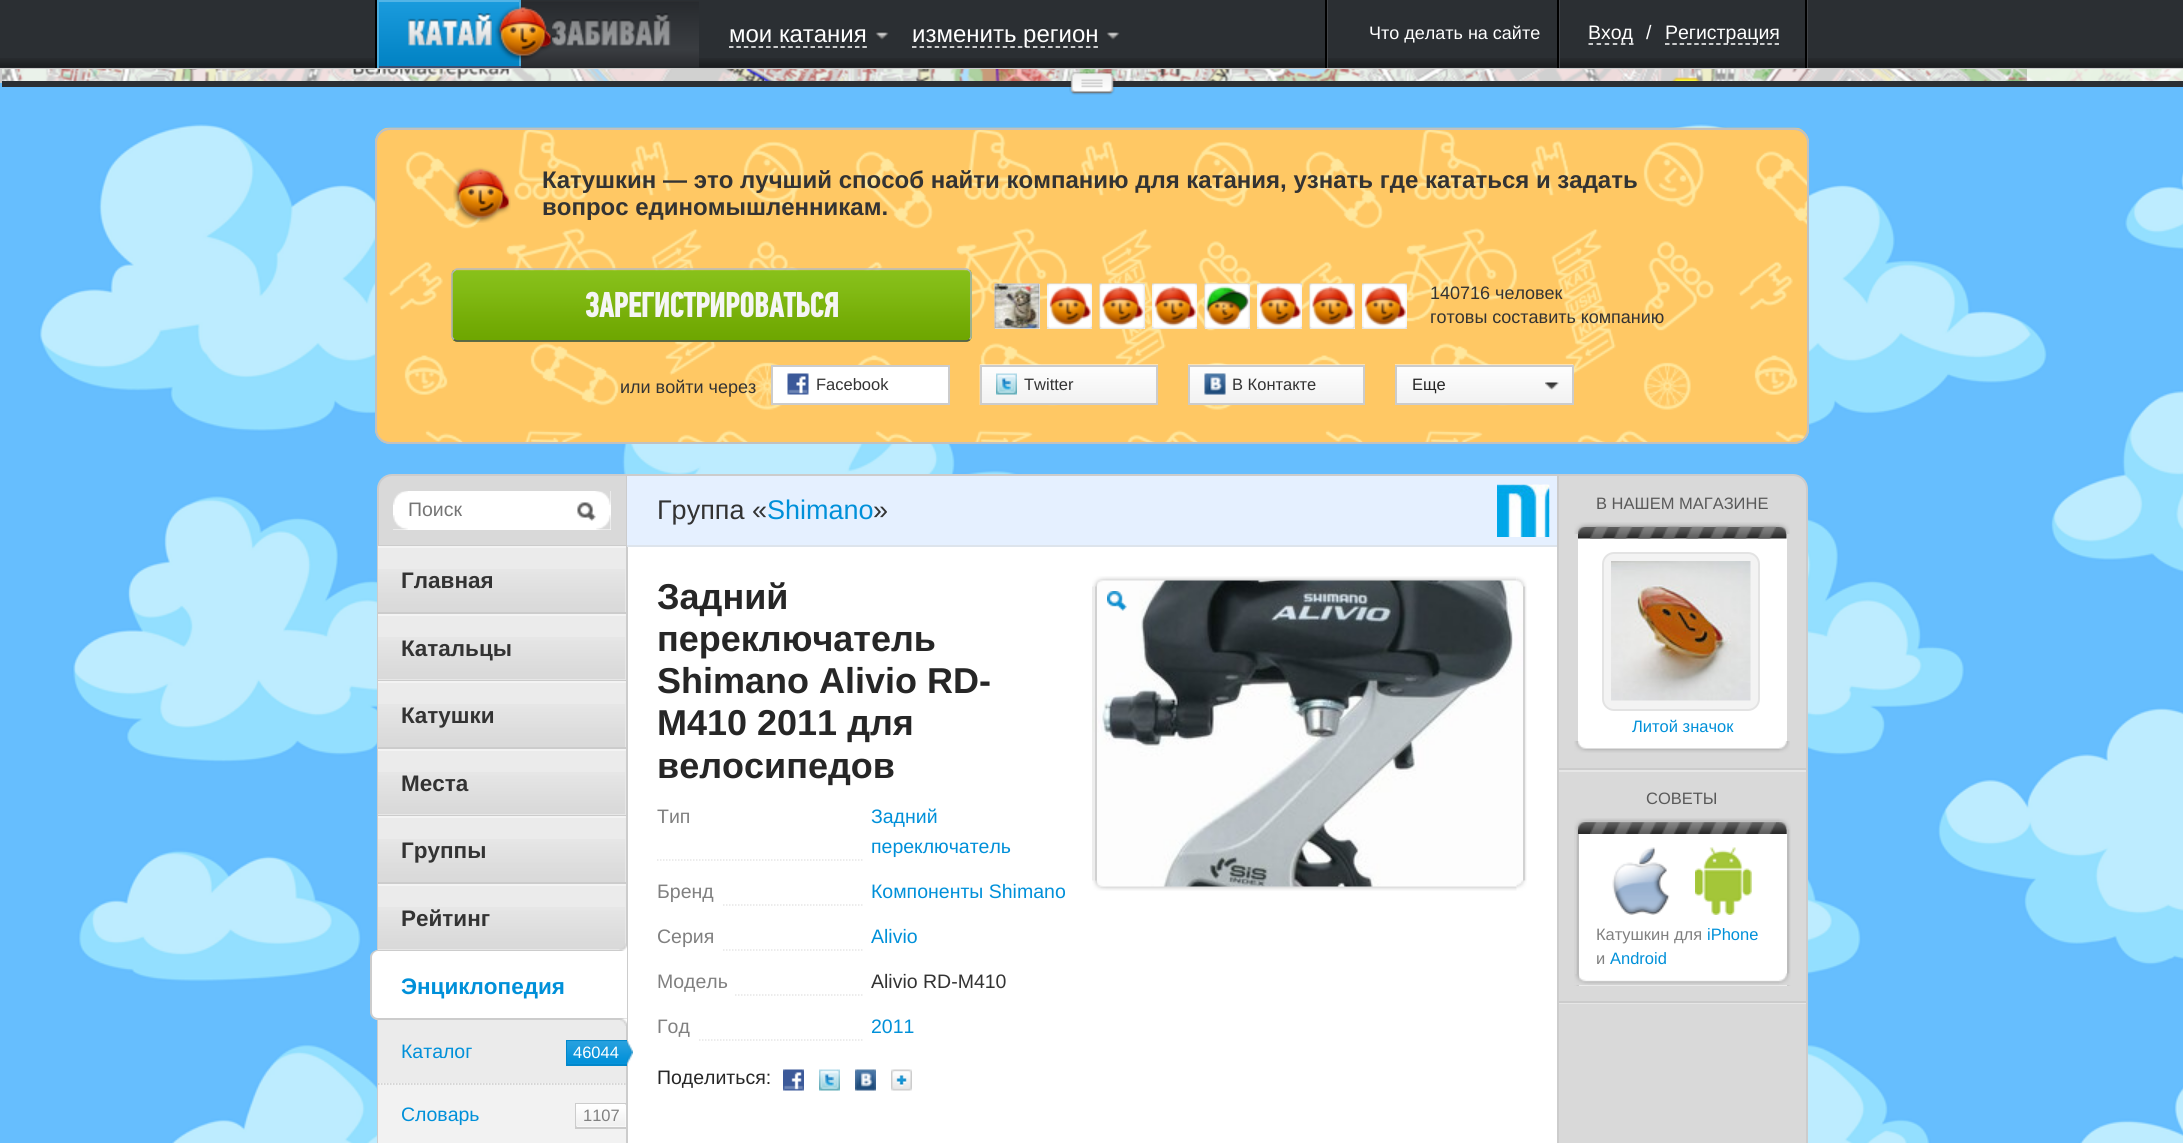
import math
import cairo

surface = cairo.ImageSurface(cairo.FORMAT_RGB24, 2183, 1143)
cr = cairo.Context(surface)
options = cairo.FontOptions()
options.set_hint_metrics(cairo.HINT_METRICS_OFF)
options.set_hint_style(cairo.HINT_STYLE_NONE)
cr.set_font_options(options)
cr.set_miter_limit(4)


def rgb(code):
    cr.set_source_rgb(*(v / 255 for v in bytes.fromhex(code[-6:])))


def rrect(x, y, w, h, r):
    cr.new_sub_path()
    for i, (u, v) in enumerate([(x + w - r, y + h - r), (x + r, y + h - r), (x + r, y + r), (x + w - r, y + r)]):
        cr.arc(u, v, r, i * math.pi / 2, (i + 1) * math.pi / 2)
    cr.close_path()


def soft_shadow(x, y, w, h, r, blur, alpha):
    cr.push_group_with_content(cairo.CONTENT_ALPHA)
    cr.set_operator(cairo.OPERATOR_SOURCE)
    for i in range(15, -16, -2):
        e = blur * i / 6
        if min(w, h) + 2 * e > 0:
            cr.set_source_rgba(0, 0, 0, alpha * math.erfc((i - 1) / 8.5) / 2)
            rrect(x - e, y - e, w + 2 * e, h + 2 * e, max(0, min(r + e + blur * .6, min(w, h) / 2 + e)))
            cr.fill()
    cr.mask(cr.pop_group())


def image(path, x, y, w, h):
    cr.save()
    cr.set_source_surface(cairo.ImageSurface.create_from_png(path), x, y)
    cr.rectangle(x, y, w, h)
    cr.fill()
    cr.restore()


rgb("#ffffff")
cr.paint()
cr.rectangle(1, 69, 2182, 13)
rgb("#cccccc")
cr.stroke()
image("img/11.png", 1916, 69, 267, 12)
image("img/13.png", 0, 83, 2183, 1060)
rgb("#2b2f33")
cr.rectangle(2, 81, 2181, 6)
cr.fill()
cr.save()
cr.rectangle(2, 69, 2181, 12)
cr.clip()
cr.set_fill_rule(cairo.FILL_RULE_EVEN_ODD)
cr.new_path()
cr.move_to(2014, 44)
cr.line_to(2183, 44)
cr.line_to(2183, 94)
cr.line_to(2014, 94)
cr.close_path()
cr.move_to(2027, 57)
cr.line_to(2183, 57)
cr.line_to(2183, 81)
cr.line_to(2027, 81)
cr.close_path()
cr.clip()
rgb("#bbbbbb")
soft_shadow(2027, 57, 156, 24, 0, 4, 1)
cr.restore()
cr.rectangle(0, 0, 2183, 68)
cr.fill()
image("img/1.png", 0, 58, 2183, 10)
rgb("#000000")
cr.rectangle(375, 0, 2, 68)
cr.fill()
gradient = cairo.LinearGradient(378, 1.5, 378, 66)
gradient.add_color_stop_rgba(0, 0.102, 0.608, 0.867, 1)
gradient.add_color_stop_rgba(1, 0.004, 0.51, 0.765, 1)
cr.set_source(gradient)
cr.rectangle(379, 2, 140, 64)
cr.fill()
for x, y, w, h, color in [
    (377, 0, 144, 2, "#53b4e6"),
    (519, 0, 2, 68, "#4aacdd"),
    (377, 66, 144, 2, "#3d5072"),
    (377, 0, 2, 68, "#4aacdd"),
]:
    rgb(color)
    cr.rectangle(x, y, w, h)
    cr.fill()
image("img/2.png", 408, 13, 84, 33)
gradient = cairo.LinearGradient(522, -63, 522, 1.5)
gradient.add_color_stop_rgba(0, 0.153, 0.165, 0.18, 1)
gradient.add_color_stop_rgba(0.75, 0.227, 0.239, 0.255, 1)
gradient.add_color_stop_rgba(1, 0.169, 0.176, 0.188, 1)
cr.set_source(gradient)
cr.rectangle(521, 1, 178, 1)
cr.fill()
gradient = cairo.LinearGradient(522, 1.5, 522, 66)
gradient.add_color_stop_rgba(0, 0.153, 0.165, 0.18, 1)
gradient.add_color_stop_rgba(0.75, 0.227, 0.239, 0.255, 1)
gradient.add_color_stop_rgba(1, 0.169, 0.176, 0.188, 1)
cr.set_source(gradient)
cr.rectangle(521, 2, 178, 64)
cr.fill()
gradient = cairo.LinearGradient(522, 66, 522, 131)
gradient.add_color_stop_rgba(0, 0.153, 0.165, 0.18, 1)
gradient.add_color_stop_rgba(0.75, 0.227, 0.239, 0.255, 1)
gradient.add_color_stop_rgba(1, 0.169, 0.176, 0.188, 1)
cr.set_source(gradient)
cr.rectangle(521, 66, 178, 2)
cr.fill()
image("img/3.png", 552, 13, 119, 33)
image("img/4.png", 495, 5, 58, 56)
cr.new_path()
cr.move_to(729, 47)
cr.line_to(867, 47)
rgb("#ffffff")
cr.set_line_width(1.5)
cr.set_dash([4.5, 2.91])
cr.stroke()
image("img/5.png", 875, 31, 14, 9)
cr.new_path()
cr.move_to(912, 47)
cr.line_to(1098, 47)
cr.set_dash([4.5, 3.06])
cr.stroke()
image("img/5.png", 1106, 31, 14, 9)
for x, y, w, h, color in [
    (1327, 0, 1, 68, "#414448"),
    (1325, 0, 2, 68, "#000000"),
    (1559, 0, 1, 68, "#414448"),
    (1557, 0, 2, 68, "#000000"),
]:
    rgb(color)
    cr.rectangle(x, y, w, h)
    cr.fill()
cr.new_path()
cr.move_to(1588.5, 44)
cr.line_to(1633.5, 44)
rgb("#ffffff")
cr.set_dash([4.5, 3.6])
cr.stroke()
cr.new_path()
cr.move_to(1665, 44)
cr.line_to(1779, 44)
cr.set_dash([4.5, 2.81])
cr.stroke()
rgb("#414448")
cr.rectangle(1807, 0, 1, 68)
cr.fill()
rgb("#000000")
cr.rectangle(1805, 0, 2, 68)
cr.fill()
cr.set_source_rgba(1, 1, 1, 0.7)
cr.rectangle(2027, 69, 156, 12)
cr.fill()
image("img/6.png", 2, 69, 378, 12)
image("img/7.png", 380, 69, 384, 12)
image("img/8.png", 764, 69, 384, 12)
image("img/9.png", 1148, 69, 384, 12)
image("img/10.png", 1532, 69, 384, 12)
image("img/12.png", 1069, 72, 46, 23)
image("img/14.png", 375, 127, 1434, 317)
rrect(376, 129, 1432, 314, 14)
rgb("#c1c1c1")
cr.set_line_width(2)
cr.set_dash([])
cr.stroke()
image("img/15.png", 453, 167, 58, 56)
image("img/16.png", 451, 269, 521, 73)
cr.new_path()
cr.move_to(454, 271)
cr.curve_to(455, 270, 456, 269, 457.5, 269)
cr.line_to(966, 269)
cr.curve_to(967.5, 269, 968.5, 270, 969.5, 271)
rgb("#b6bbc2")
cr.set_line_width(1.5)
cr.stroke()
cr.new_path()
cr.move_to(969.5, 271)
cr.curve_to(970.5, 272, 971, 273, 971, 274.5)
cr.line_to(971, 336)
cr.curve_to(971, 337.5, 970.5, 338.5, 969.5, 339.5)
rgb("#aeb3b9")
cr.stroke()
cr.new_path()
cr.move_to(969.5, 339.5)
cr.curve_to(968.5, 340.5, 967.5, 341, 966, 341)
cr.line_to(457.5, 341)
cr.curve_to(456, 341, 455, 340.5, 454, 339.5)
rgb("#515457")
cr.stroke()
cr.new_path()
cr.move_to(454, 339.5)
cr.curve_to(453, 338.5, 452, 337.5, 452, 336)
cr.line_to(452, 274.5)
cr.curve_to(452, 273, 453, 272, 454, 271)
rgb("#adb3b9")
cr.stroke()
rgb("#ffffff")
cr.rectangle(995, 284, 45, 45)
cr.fill()
image("img/17.png", 994, 283, 46, 46)
image("img/18.png", 994, 283, 46, 46)
cr.rectangle(1047, 328, 45, 1)
cr.fill()
image("img/19.png", 1047, 283, 45, 46)
image("img/20.png", 1047, 283, 45, 46)
cr.rectangle(1100, 284, 45, 45)
cr.fill()
image("img/21.png", 1099, 283, 46, 46)
image("img/22.png", 1099, 283, 46, 46)
cr.rectangle(1152, 328, 45, 1)
cr.fill()
image("img/23.png", 1152, 283, 45, 46)
image("img/24.png", 1152, 283, 45, 46)
cr.rectangle(1205, 284, 45, 45)
cr.fill()
image("img/25.png", 1204, 283, 46, 46)
image("img/26.png", 1204, 283, 46, 46)
cr.rectangle(1257, 328, 45, 1)
cr.fill()
image("img/27.png", 1257, 283, 45, 46)
image("img/28.png", 1257, 283, 45, 46)
cr.rectangle(1310, 284, 45, 45)
cr.fill()
image("img/29.png", 1309, 283, 46, 46)
image("img/30.png", 1309, 283, 46, 46)
cr.rectangle(1362, 328, 45, 1)
cr.fill()
image("img/31.png", 1362, 283, 45, 46)
image("img/32.png", 1362, 283, 45, 46)
cr.rectangle(772, 366, 177, 38)
cr.fill_preserve()
rgb("#cccccc")
cr.set_line_width(2)
cr.stroke()
image("img/33.png", 787, 373, 22, 22)
image("img/34.png", 979, 364, 179, 41)
cr.rectangle(981, 366, 176, 38)
cr.stroke()
image("img/35.png", 996, 373, 21, 22)
image("img/36.png", 1188, 364, 177, 39)
cr.rectangle(1189, 366, 175, 38)
cr.stroke()
image("img/37.png", 1204, 373, 22, 22)
image("img/38.png", 1395, 364, 179, 39)
cr.rectangle(1396, 366, 177, 38)
cr.stroke()
image("img/39.png", 1545, 382, 14, 8)
rgb("#d9d9d9")
rrect(378, 475, 1429, 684, 14)
cr.fill_preserve()
rgb("#cccccc")
cr.stroke()
rgb("#ffffff")
cr.rectangle(393, 491, 218, 39)
cr.fill()
image("img/40.png", 393, 491, 15, 14)
image("img/42.png", 577, 502, 19, 19)
image("img/41.png", 595, 491, 16, 14)
image("img/43.png", 393, 515, 15, 15)
image("img/44.png", 596, 515, 15, 15)
for x, y, w, h, color in [
    (378, 545, 248, 1, "#cccccc"),
    (378, 548, 248, 64, "#ebebeb"),
    (378, 546, 248, 2, "#f3f3f3"),
    (378, 612, 248, 2, "#cccccc"),
]:
    rgb(color)
    cr.rectangle(x, y, w, h)
    cr.fill()
image("img/45.png", 378, 569, 248, 43)
for x, y, w, h, color in [
    (378, 616, 248, 64, "#ebebeb"),
    (378, 614, 248, 2, "#f3f3f3"),
    (378, 680, 248, 1, "#cccccc"),
]:
    rgb(color)
    cr.rectangle(x, y, w, h)
    cr.fill()
image("img/46.png", 378, 637, 248, 43)
for x, y, w, h, color in [
    (378, 683, 248, 64, "#ebebeb"),
    (378, 681, 248, 2, "#f3f3f3"),
    (378, 747, 248, 2, "#cccccc"),
]:
    rgb(color)
    cr.rectangle(x, y, w, h)
    cr.fill()
image("img/45.png", 378, 704, 248, 43)
for x, y, w, h, color in [
    (378, 751, 248, 64, "#ebebeb"),
    (378, 749, 248, 2, "#f3f3f3"),
    (378, 815, 248, 1, "#cccccc"),
]:
    rgb(color)
    cr.rectangle(x, y, w, h)
    cr.fill()
image("img/46.png", 378, 772, 248, 43)
for x, y, w, h, color in [
    (378, 818, 248, 64, "#ebebeb"),
    (378, 816, 248, 2, "#f3f3f3"),
    (378, 882, 248, 2, "#cccccc"),
]:
    rgb(color)
    cr.rectangle(x, y, w, h)
    cr.fill()
image("img/45.png", 378, 839, 248, 43)
rgb("#ebebeb")
cr.rectangle(378, 886, 248, 64)
cr.fill()
rgb("#f3f3f3")
cr.rectangle(378, 884, 248, 2)
cr.fill()
image("img/46.png", 378, 907, 248, 43)
rgb("#ebebeb")
cr.rectangle(378, 1020, 248, 63)
cr.fill()
rgb("#cccccc")
cr.rectangle(626, 476, 2, 667)
cr.fill()
rgb("#ffffff")
cr.new_path()
cr.move_to(379, 950)
cr.line_to(627, 950)
cr.line_to(627, 1020)
cr.line_to(379, 1020)
cr.curve_to(374.5, 1020, 371, 1016.5, 371, 1012)
cr.line_to(371, 958)
cr.curve_to(371, 953.5, 374.5, 950, 379, 950)
cr.close_path()
cr.fill()
rgb("#cccccc")
cr.set_fill_rule(cairo.FILL_RULE_EVEN_ODD)
cr.new_path()
cr.move_to(378, 950)
cr.line_to(627, 950)
cr.line_to(627, 1020)
cr.line_to(378, 1020)
cr.curve_to(374, 1020, 370, 1017, 370, 1012)
cr.line_to(370, 957)
cr.curve_to(370, 953, 374, 950, 378, 950)
cr.close_path()
cr.move_to(378, 951)
cr.line_to(627, 951)
cr.line_to(627, 1018)
cr.line_to(378, 1018)
cr.curve_to(375, 1018, 372, 1016, 372, 1012)
cr.line_to(372, 957)
cr.curve_to(372, 954, 375, 951, 378, 951)
cr.close_path()
cr.fill()
image("img/47.png", 619, 943, 8, 8)
image("img/48.png", 620, 1018, 7, 8)
for x, y, w, h, color in [
    (568, 1063, 59, 1, "#0d95d8"),
    (566, 1040, 61, 1, "#0187cb"),
    (566, 1064, 61, 2, "#0187cb"),
    (566, 1040, 2, 25, "#0187cb"),
]:
    rgb(color)
    cr.rectangle(x, y, w, h)
    cr.fill()
image("img/49.png", 567, 1041, 60, 23)
rgb("#ffffff")
cr.rectangle(628, 547, 929, 596)
cr.fill()
image("img/50.png", 627, 1041, 6, 23)
rgb("#f2f2f2")
cr.rectangle(378, 1083, 248, 60)
cr.fill()
cr.new_path()
cr.move_to(378, 1084)
cr.line_to(625.5, 1084)
rgb("#cccccc")
cr.set_line_width(1.5)
cr.set_dash([1.5, 1.5])
cr.stroke()
for x, y, w, h, color in [
    (577, 1105, 49, 22, "#ffffff"),
    (575, 1103, 51, 2, "#cccccc"),
    (575, 1127, 51, 2, "#cccccc"),
    (575, 1103, 2, 25, "#cccccc"),
]:
    rgb(color)
    cr.rectangle(x, y, w, h)
    cr.fill()
image("img/51.png", 576, 1104, 50, 23)
for x, y, w, h, color in [
    (1557, 476, 2, 667, "#cccccc"),
    (627, 476, 930, 69, "#e5f0ff"),
    (627, 545, 930, 2, "#dde4ec"),
]:
    rgb(color)
    cr.rectangle(x, y, w, h)
    cr.fill()
image("img/52.png", 1497, 484, 53, 53)
image("img/53.png", 1497, 484, 53, 53)
image("img/54.png", 1092, 576, 432, 315)
image("img/55.png", 1107, 591, 20, 20)
cr.set_source_rgba(0.812, 0.812, 0.812, 0.35)
cr.rectangle(1092, 576, 5, 315)
cr.fill()
cr.set_source_rgba(0.624, 0.624, 0.624, 0.35)
cr.rectangle(1095, 576, 2, 315)
cr.fill()
image("img/56.png", 1092, 576, 425, 11)
cr.set_source_rgba(0.812, 0.812, 0.812, 0.35)
cr.rectangle(1523, 586, 3, 295)
cr.fill()
rgb("#f9f9f9")
cr.rectangle(1526, 586, 1, 295)
cr.fill()
cr.set_source_rgba(0.624, 0.624, 0.624, 0.35)
cr.rectangle(1523, 586, 2, 295)
cr.fill()
image("img/57.png", 1516, 576, 11, 11)
image("img/59.png", 1516, 880, 11, 11)
image("img/58.png", 1092, 880, 425, 11)
cr.new_path()
cr.move_to(657, 860)
cr.line_to(1069.5, 860)
rgb("#e6e6e6")
cr.stroke()
rgb("#ffffff")
cr.rectangle(864, 859, 206, 2)
cr.fill()
cr.new_path()
cr.move_to(657, 905)
cr.line_to(1069.5, 905)
rgb("#e6e6e6")
cr.stroke()
rgb("#ffffff")
cr.rectangle(657, 904, 65, 2)
cr.fill()
cr.rectangle(864, 904, 206, 2)
cr.fill()
cr.new_path()
cr.move_to(657, 950)
cr.line_to(1069.5, 950)
rgb("#e6e6e6")
cr.stroke()
rgb("#ffffff")
cr.rectangle(657, 949, 65, 2)
cr.fill()
cr.rectangle(864, 949, 206, 2)
cr.fill()
cr.new_path()
cr.move_to(657, 995)
cr.line_to(1069.5, 995)
rgb("#e6e6e6")
cr.stroke()
rgb("#ffffff")
cr.rectangle(657, 994, 77, 2)
cr.fill()
cr.rectangle(864, 994, 206, 2)
cr.fill()
cr.new_path()
cr.move_to(657, 1040)
cr.line_to(1069.5, 1040)
rgb("#e6e6e6")
cr.stroke()
rgb("#ffffff")
cr.rectangle(657, 1039, 41, 2)
cr.fill()
cr.rectangle(864, 1039, 206, 2)
cr.fill()
image("img/60.png", 783, 1069, 21, 22)
image("img/61.png", 819, 1069, 21, 22)
image("img/62.png", 855, 1069, 21, 22)
image("img/63.png", 891, 1069, 21, 22)
for x, y, w, h, color in [
    (1559, 770, 247, 2, "#e6e6e6"),
    (1559, 768, 247, 2, "#cccccc"),
    (1578, 526, 209, 223, "#ffffff"),
]:
    rgb(color)
    cr.rectangle(x, y, w, h)
    cr.fill()
image("img/66.png", 1578, 526, 209, 13)
image("img/67.png", 1590, 526, 186, 13)
image("img/64.png", 1574, 522, 205, 12)
image("img/65.png", 1779, 522, 11, 12)
rgb("#f3f3f3")
rrect(1603, 553, 156, 157, 11)
cr.fill_preserve()
rgb("#e3e3e3")
cr.set_line_width(2)
cr.set_dash([])
cr.stroke()
image("img/68.png", 1611, 561, 140, 140)
image("img/69.png", 1574, 741, 205, 12)
image("img/70.png", 1779, 741, 11, 12)
for x, y, w, h, color in [
    (1559, 1003, 247, 1, "#e6e6e6"),
    (1559, 1001, 247, 2, "#cccccc"),
    (1579, 821, 208, 165, "#ffffff"),
    (1576, 829, 1, 157, "#cbcbcb"),
    (1577, 818, 2, 168, "#bcbcbc"),
    (1574, 829, 2, 157, "#d4d4d4"),
]:
    rgb(color)
    cr.rectangle(x, y, w, h)
    cr.fill()
image("img/73.png", 1578, 822, 209, 12)
image("img/74.png", 1590, 822, 197, 12)
image("img/75.png", 1590, 822, 186, 12)
image("img/71.png", 1574, 818, 205, 12)
for x, y, w, h, color in [
    (1789, 829, 1, 157, "#cbcbcb"),
    (1790, 829, 1, 157, "#d4d4d4"),
    (1787, 829, 2, 157, "#bcbcbc"),
]:
    rgb(color)
    cr.rectangle(x, y, w, h)
    cr.fill()
image("img/72.png", 1779, 818, 12, 12)
image("img/76.png", 1612, 847, 58, 68)
image("img/77.png", 1695, 847, 57, 68)
image("img/78.png", 1574, 974, 205, 12)
image("img/79.png", 1779, 973, 12, 13)
cr.select_font_face("Liberation Sans")
cr.set_font_size(24)
rgb("#ffffff")
cr.move_to(729, 42)
cr.show_text("мои катания")
cr.move_to(912, 42)
cr.show_text("изменить регион")
cr.set_font_size(18)
cr.move_to(1369, 39)
cr.show_text("Что делать на сайте")
cr.set_font_size(19.5)
for x, y, s in [
    (1588, 39, "Вход"),
    (1646, 39, "/"),
    (1665, 39, "Регистрация"),
]:
    cr.move_to(x, y)
    cr.show_text(s)
cr.select_font_face("Liberation Sans", cairo.FONT_SLANT_NORMAL, cairo.FONT_WEIGHT_BOLD)
cr.set_font_size(24)
rgb("#333333")
cr.move_to(542, 188)
cr.show_text("Катушкин — это лучший способ найти компанию для катания, узнать где кататься и задать")
cr.move_to(542, 215)
cr.show_text("вопрос единомышленникам.")
cr.select_font_face("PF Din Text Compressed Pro", cairo.FONT_SLANT_NORMAL, cairo.FONT_WEIGHT_BOLD)
cr.set_font_size(34.5)
rgb("#f5f5f5")
cr.move_to(585, 317)
cr.show_text("ЗАРЕГИСТРИРОВАТЬСЯ")
cr.select_font_face("Liberation Sans")
cr.set_font_size(18)
rgb("#333333")
for x, y, s in [
    (1430, 299, "140716 человек"),
    (1430, 323, "готовы составить компанию"),
    (620, 393, "или войти через"),
]:
    cr.move_to(x, y)
    cr.show_text(s)
cr.set_font_size(16.5)
for x, y, s in [
    (816, 390, "Facebook"),
    (1024, 390, "Twitter"),
    (1232, 390, "В Контакте"),
]:
    cr.move_to(x, y)
    cr.show_text(s)
rgb("#262626")
cr.move_to(1412, 390)
cr.show_text("Еще")
cr.set_font_size(19.5)
rgb("#757575")
cr.move_to(408, 516)
cr.show_text("Поиск")
cr.select_font_face("Liberation Sans", cairo.FONT_SLANT_NORMAL, cairo.FONT_WEIGHT_BOLD)
cr.set_font_size(22.5)
rgb("#333333")
for x, y, s in [
    (401, 588, "Главная"),
    (401, 656, "Катальцы"),
    (401, 723, "Катушки"),
    (401, 791, "Места"),
    (401, 858, "Группы"),
    (401, 926, "Рейтинг"),
]:
    cr.move_to(x, y)
    cr.show_text(s)
rgb("#0090d9")
cr.move_to(401, 994)
cr.show_text("Энциклопедия")
cr.select_font_face("Liberation Sans")
cr.set_font_size(19.5)
cr.move_to(401, 1058)
cr.show_text("Каталог")
cr.set_font_size(16.5)
rgb("#ffffff")
cr.move_to(573, 1058)
cr.show_text("46044")
cr.set_font_size(19.5)
rgb("#0090d9")
cr.move_to(401, 1121)
cr.show_text("Словарь")
cr.set_font_size(16.5)
rgb("#808080")
cr.move_to(583, 1121)
cr.show_text("1107")
cr.set_font_size(27)
rgb("#333333")
cr.move_to(657, 519)
cr.show_text("Группа «")
rgb("#0090d9")
cr.move_to(767, 519)
cr.show_text("Shimano")
rgb("#333333")
cr.move_to(873, 519)
cr.show_text("»")
cr.select_font_face("Liberation Sans", cairo.FONT_SLANT_NORMAL, cairo.FONT_WEIGHT_BOLD)
cr.set_font_size(36)
rgb("#262626")
for x, y, s in [
    (657, 609, "Задний"),
    (657, 651, "переключатель"),
    (657, 693, "Shimano Alivio RD-"),
    (657, 735, "M410 2011 для"),
    (657, 778, "велосипедов"),
]:
    cr.move_to(x, y)
    cr.show_text(s)
cr.select_font_face("Liberation Sans")
cr.set_font_size(19.5)
rgb("#808080")
cr.move_to(657, 823)
cr.show_text("Тип")
rgb("#0090d9")
cr.move_to(871, 823)
cr.show_text("Задний")
cr.move_to(871, 853)
cr.show_text("переключатель")
rgb("#808080")
cr.move_to(657, 898)
cr.show_text("Бренд")
rgb("#0090d9")
cr.move_to(871, 898)
cr.show_text("Компоненты Shimano")
rgb("#808080")
cr.move_to(657, 943)
cr.show_text("Серия")
rgb("#0090d9")
cr.move_to(871, 943)
cr.show_text("Alivio")
rgb("#808080")
cr.move_to(657, 988)
cr.show_text("Модель")
rgb("#333333")
cr.move_to(871, 988)
cr.show_text("Alivio RD-M410")
rgb("#808080")
cr.move_to(657, 1033)
cr.show_text("Год")
rgb("#0090d9")
cr.move_to(871, 1033)
cr.show_text("2011")
rgb("#262626")
cr.move_to(657, 1084)
cr.show_text("Поделиться:")
cr.set_font_size(16.5)
rgb("#595959")
cr.move_to(1596, 509)
cr.show_text("В НАШЕМ МАГАЗИНЕ")
rgb("#0090d9")
cr.move_to(1632, 732)
cr.show_text("Литой значок")
rgb("#595959")
cr.move_to(1646, 804)
cr.show_text("СОВЕТЫ")
rgb("#808080")
cr.move_to(1596, 940)
cr.show_text("Катушкин для")
rgb("#0090d9")
cr.move_to(1707, 940)
cr.show_text("iPhone")
rgb("#808080")
cr.move_to(1596, 964)
cr.show_text("и")
rgb("#0090d9")
cr.move_to(1610, 964)
cr.show_text("Android")
surface.write_to_png("page.png")
